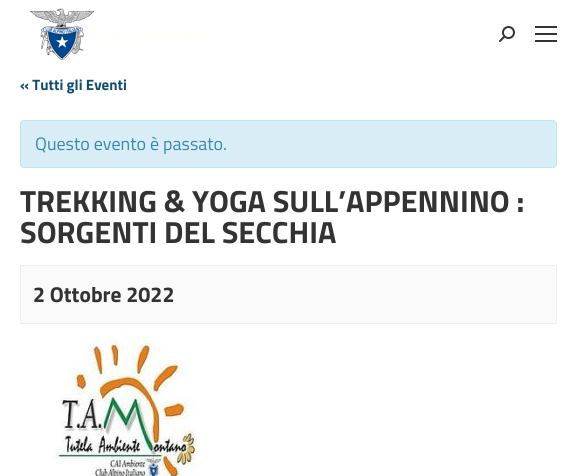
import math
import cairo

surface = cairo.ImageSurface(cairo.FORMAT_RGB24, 577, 476)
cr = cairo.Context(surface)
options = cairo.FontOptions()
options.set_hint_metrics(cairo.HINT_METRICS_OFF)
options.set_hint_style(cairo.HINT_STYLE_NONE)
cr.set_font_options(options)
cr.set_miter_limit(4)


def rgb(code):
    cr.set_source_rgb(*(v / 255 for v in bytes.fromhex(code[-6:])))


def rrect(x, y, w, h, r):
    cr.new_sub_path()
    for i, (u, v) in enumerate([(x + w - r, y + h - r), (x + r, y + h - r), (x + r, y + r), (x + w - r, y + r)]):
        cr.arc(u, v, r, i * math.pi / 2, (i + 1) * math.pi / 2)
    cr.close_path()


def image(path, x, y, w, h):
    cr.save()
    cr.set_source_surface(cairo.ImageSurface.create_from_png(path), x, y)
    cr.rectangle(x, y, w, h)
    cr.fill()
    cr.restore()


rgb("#ffffff")
cr.paint()
image("img/1.png", 30, 8, 177, 52)
image("img/2.png", 499, 26, 16, 16)
for x, y, w, h, color in [
    (535, 33, 22, 2, "#333333"),
    (535, 26, 22, 2, "#333333"),
    (535, 40, 22, 2, "#333333"),
]:
    rgb(color)
    cr.rectangle(x, y, w, h)
    cr.fill()
rgb("#d9edf7")
rrect(20.5, 120.5, 536, 47, 3.5)
cr.fill_preserve()
rgb("#bce8f1")
cr.set_line_width(1)
cr.stroke()
rgb("#fafafa")
cr.rectangle(20.5, 265.5, 536, 58)
cr.fill_preserve()
rgb("#eeeeee")
cr.stroke()
image("img/3.png", 52, 332, 150, 144)
cr.select_font_face("Titillium Web", cairo.FONT_SLANT_NORMAL, cairo.FONT_WEIGHT_BOLD)
cr.set_font_size(15)
rgb("#104d71")
cr.move_to(20, 90)
cr.show_text("« Tutti gli Eventi")
cr.select_font_face("Titillium Web")
cr.set_font_size(18)
rgb("#3a87ad")
cr.move_to(35, 150)
cr.show_text("Questo evento è passato.")
cr.select_font_face("Titillium Web", cairo.FONT_SLANT_NORMAL, cairo.FONT_WEIGHT_BOLD)
cr.set_font_size(30.6)
rgb("#333333")
cr.move_to(20, 212)
cr.show_text("TREKKING & YOGA SULL’APPENNINO :")
cr.move_to(20, 243)
cr.show_text("SORGENTI DEL SECCHIA")
cr.set_font_size(21.5)
cr.move_to(33, 302)
cr.show_text("2 Ottobre 2022")
surface.write_to_png("page.png")
